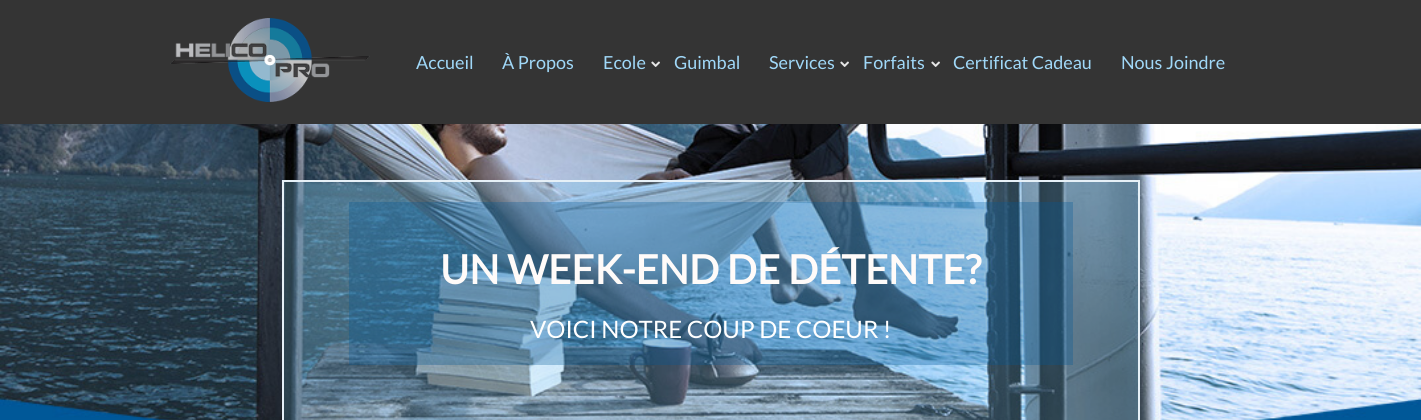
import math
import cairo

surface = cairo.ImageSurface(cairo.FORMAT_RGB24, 1421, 420)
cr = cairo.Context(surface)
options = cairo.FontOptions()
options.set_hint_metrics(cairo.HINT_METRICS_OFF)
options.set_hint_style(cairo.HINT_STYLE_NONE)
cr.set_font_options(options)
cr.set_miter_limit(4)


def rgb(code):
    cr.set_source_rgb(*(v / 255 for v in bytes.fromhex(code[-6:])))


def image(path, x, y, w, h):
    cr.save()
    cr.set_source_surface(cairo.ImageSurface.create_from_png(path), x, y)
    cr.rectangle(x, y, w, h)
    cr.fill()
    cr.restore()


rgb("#343434")
cr.paint()
image("img/1.png", 170, 18, 200, 84)
image("img/2.png", 651, 61, 9, 6)
image("img/2.png", 840, 61, 9, 6)
image("img/2.png", 931, 61, 9, 6)
image("img/3.png", 0, 124, 1421, 296)
cr.set_source_rgba(0.518, 0.796, 0.957, 0.3)
cr.rectangle(283, 181, 856, 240)
cr.fill_preserve()
rgb("#e6f0f7")
cr.stroke()
cr.set_source_rgba(0, 0.341, 0.596, 0.3)
cr.rectangle(349, 202, 724, 163)
cr.fill()
cr.select_font_face("Lato")
cr.set_font_size(18)
rgb("#a0d8f8")
for x, y, s in [
    (416, 69, "Accueil"),
    (502, 69, "À Propos"),
    (603, 69, "Ecole"),
    (674, 69, "Guimbal"),
    (769, 69, "Services"),
    (863, 69, "Forfaits"),
    (953, 69, "Certificat Cadeau"),
    (1121, 69, "Nous Joindre"),
]:
    cr.move_to(x, y)
    cr.show_text(s)
cr.select_font_face("Lato", cairo.FONT_SLANT_NORMAL, cairo.FONT_WEIGHT_BOLD)
cr.set_font_size(40)
rgb("#fffbf9")
cr.move_to(440, 284)
cr.show_text("UN WEEK-END DE DÉTENTE?")
cr.select_font_face("Lato")
cr.set_font_size(24)
rgb("#ffffff")
cr.move_to(530, 338)
cr.show_text("VOICI NOTRE COUP DE COEUR !")
surface.write_to_png("page.png")
